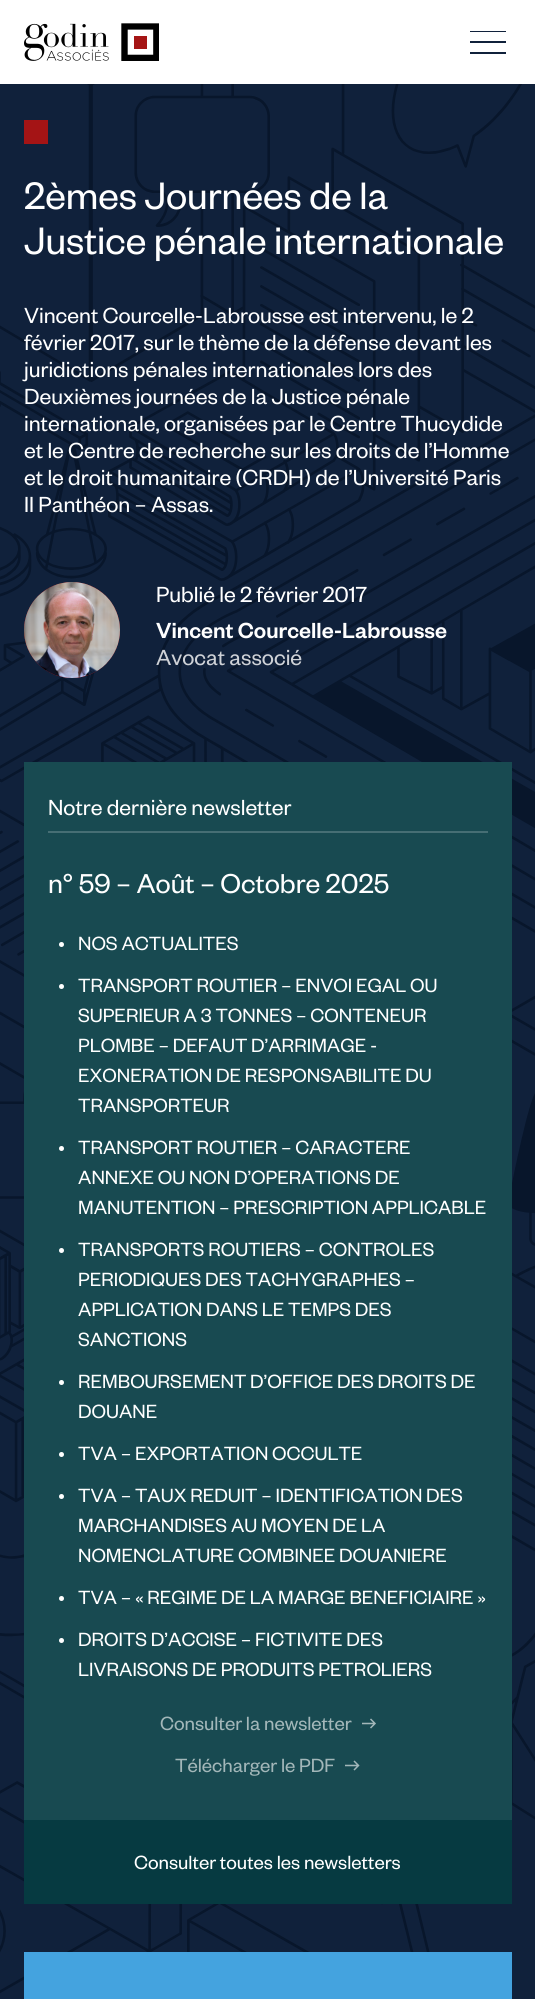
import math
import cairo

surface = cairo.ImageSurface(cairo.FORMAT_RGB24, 535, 1999)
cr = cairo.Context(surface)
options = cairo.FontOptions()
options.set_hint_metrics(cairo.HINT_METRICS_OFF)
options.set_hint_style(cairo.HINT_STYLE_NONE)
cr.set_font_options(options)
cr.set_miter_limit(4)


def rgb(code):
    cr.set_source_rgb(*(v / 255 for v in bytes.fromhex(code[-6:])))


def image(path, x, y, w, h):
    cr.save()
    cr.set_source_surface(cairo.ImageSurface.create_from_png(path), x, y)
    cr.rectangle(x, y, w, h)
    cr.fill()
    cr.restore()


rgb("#ffffff")
cr.paint()
image("img/1.png", 24, 23, 135, 38)
for x, y, w, h, color in [
    (470, 31, 36, 1, "#10213b"),
    (470, 41, 36, 2, "#10213b"),
    (470, 52, 36, 2, "#10213b"),
    (0, 84, 535, 1915, "#10213b"),
]:
    rgb(color)
    cr.rectangle(x, y, w, h)
    cr.fill()
image("img/2.png", 0, 84, 535, 1910)
rgb("#a41415")
cr.rectangle(24, 120, 24, 24)
cr.fill()
cr.arc(72, 630, 48, 0, 2 * math.pi)
cr.fill()
image("img/3.png", 24, 582, 96, 96)
rgb("#184a51")
cr.rectangle(24, 762, 488, 1058)
cr.fill()
rgb("#466e74")
cr.rectangle(48, 831, 440, 2)
cr.fill()
rgb("#ffffff")
cr.arc(61.5, 944.5, 2.5, 0, 2 * math.pi)
cr.fill()
cr.arc(61.5, 986.5, 2.5, 0, 2 * math.pi)
cr.fill()
cr.arc(61.5, 1148.5, 2.5, 0, 2 * math.pi)
cr.fill()
cr.arc(61.5, 1250.5, 2.5, 0, 2 * math.pi)
cr.fill()
cr.arc(61.5, 1382.5, 2.5, 0, 2 * math.pi)
cr.fill()
cr.arc(61.5, 1454.5, 2.5, 0, 2 * math.pi)
cr.fill()
cr.arc(61.5, 1496.5, 2.5, 0, 2 * math.pi)
cr.fill()
cr.arc(61.5, 1598.5, 2.5, 0, 2 * math.pi)
cr.fill()
cr.arc(61.5, 1640.5, 2.5, 0, 2 * math.pi)
cr.fill()
image("img/4.png", 362, 1718, 14, 11)
image("img/5.png", 345, 1760, 15, 11)
rgb("#063a41")
cr.rectangle(24, 1820, 488, 84)
cr.fill()
rgb("#44a3df")
cr.rectangle(24, 1952, 488, 47)
cr.fill()
cr.select_font_face("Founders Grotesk")
cr.set_font_size(42)
rgb("#ffffff")
cr.move_to(24, 209)
cr.show_text("2èmes Journées de la")
cr.move_to(24, 254)
cr.show_text("Justice pénale internationale")
cr.set_font_size(24)
for x, y, s in [
    (24, 323, "Vincent Courcelle-Labrousse est intervenu, le 2"),
    (24, 350, "février 2017, sur le thème de la défense devant les"),
    (24, 377, "juridictions pénales internationales lors des"),
    (24, 404, "Deuxièmes journées de la Justice pénale"),
    (24, 431, "internationale, organisées par le Centre Thucydide"),
    (24, 458, "et le Centre de recherche sur les droits de l’Homme"),
    (24, 485, "et le droit humanitaire (CRDH) de l’Université Paris"),
    (24, 512, "II Panthéon – Assas."),
    (156, 602, "Publié le 2 février 2017"),
]:
    cr.move_to(x, y)
    cr.show_text(s)
cr.select_font_face("Founders Grotesk Medium")
cr.move_to(156, 638)
cr.show_text("Vincent Courcelle-Labrousse")
cr.select_font_face("Founders Grotesk")
rgb("#cfd2d7")
cr.move_to(156, 665)
cr.show_text("Avocat associé")
rgb("#ffffff")
cr.move_to(48, 815)
cr.show_text("Notre dernière newsletter")
cr.set_font_size(30)
cr.move_to(48, 893)
cr.show_text("n° 59 – Août – Octobre 2025")
cr.set_font_size(21)
for x, y, s in [
    (78, 950, "NOS ACTUALITES"),
    (78, 992, "TRANSPORT ROUTIER – ENVOI EGAL OU"),
    (78, 1022, "SUPERIEUR A 3 TONNES – CONTENEUR"),
    (78, 1052, "PLOMBE – DEFAUT D’ARRIMAGE -"),
    (78, 1082, "EXONERATION DE RESPONSABILITE DU"),
    (78, 1112, "TRANSPORTEUR"),
    (78, 1154, "TRANSPORT ROUTIER – CARACTERE"),
    (78, 1184, "ANNEXE OU NON D’OPERATIONS DE"),
    (78, 1214, "MANUTENTION – PRESCRIPTION APPLICABLE"),
    (78, 1256, "TRANSPORTS ROUTIERS – CONTROLES"),
    (78, 1286, "PERIODIQUES DES TACHYGRAPHES –"),
    (78, 1316, "APPLICATION DANS LE TEMPS DES"),
    (78, 1346, "SANCTIONS"),
    (78, 1388, "REMBOURSEMENT D’OFFICE DES DROITS DE"),
    (78, 1418, "DOUANE"),
    (78, 1460, "TVA – EXPORTATION OCCULTE"),
    (78, 1502, "TVA – TAUX REDUIT – IDENTIFICATION DES"),
    (78, 1532, "MARCHANDISES AU MOYEN DE LA"),
    (78, 1562, "NOMENCLATURE COMBINEE DOUANIERE"),
    (78, 1604, "TVA – « REGIME DE LA MARGE BENEFICIAIRE »"),
    (78, 1646, "DROITS D’ACCISE – FICTIVITE DES"),
    (78, 1676, "LIVRAISONS DE PRODUITS PETROLIERS"),
]:
    cr.move_to(x, y)
    cr.show_text(s)
rgb("#a3b7b9")
cr.move_to(160, 1730)
cr.show_text("Consulter la newsletter")
cr.move_to(175, 1772)
cr.show_text("Télécharger le PDF")
rgb("#ffffff")
cr.move_to(134, 1869)
cr.show_text("Consulter toutes les newsletters")
surface.write_to_png("page.png")
